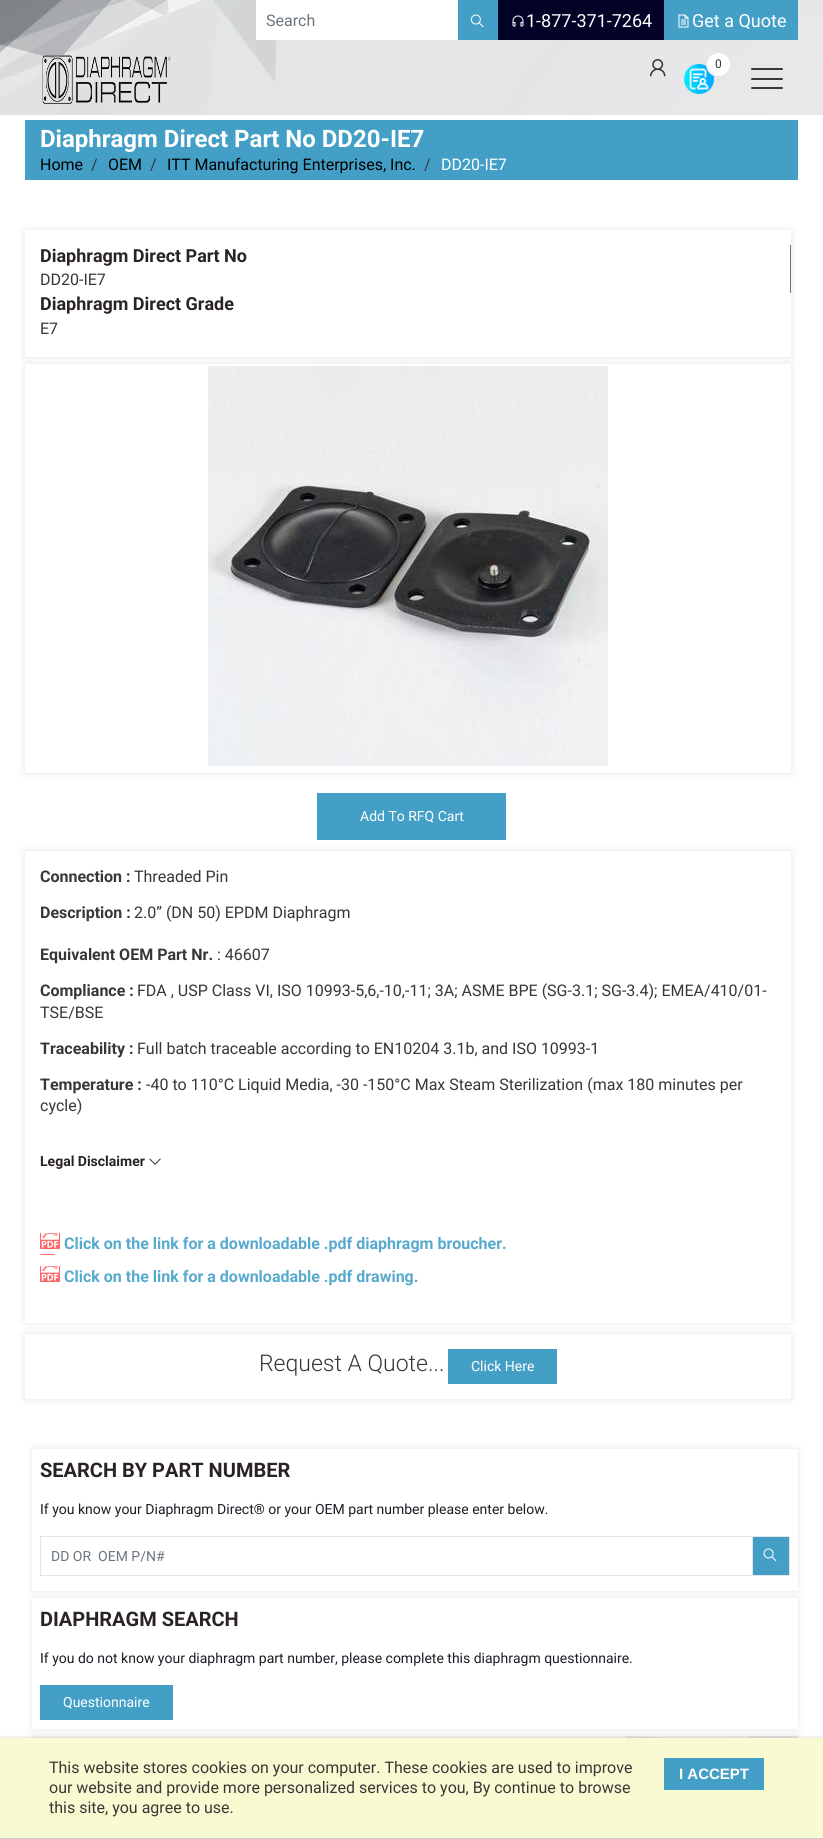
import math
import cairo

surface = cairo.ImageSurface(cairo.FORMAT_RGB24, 823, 1839)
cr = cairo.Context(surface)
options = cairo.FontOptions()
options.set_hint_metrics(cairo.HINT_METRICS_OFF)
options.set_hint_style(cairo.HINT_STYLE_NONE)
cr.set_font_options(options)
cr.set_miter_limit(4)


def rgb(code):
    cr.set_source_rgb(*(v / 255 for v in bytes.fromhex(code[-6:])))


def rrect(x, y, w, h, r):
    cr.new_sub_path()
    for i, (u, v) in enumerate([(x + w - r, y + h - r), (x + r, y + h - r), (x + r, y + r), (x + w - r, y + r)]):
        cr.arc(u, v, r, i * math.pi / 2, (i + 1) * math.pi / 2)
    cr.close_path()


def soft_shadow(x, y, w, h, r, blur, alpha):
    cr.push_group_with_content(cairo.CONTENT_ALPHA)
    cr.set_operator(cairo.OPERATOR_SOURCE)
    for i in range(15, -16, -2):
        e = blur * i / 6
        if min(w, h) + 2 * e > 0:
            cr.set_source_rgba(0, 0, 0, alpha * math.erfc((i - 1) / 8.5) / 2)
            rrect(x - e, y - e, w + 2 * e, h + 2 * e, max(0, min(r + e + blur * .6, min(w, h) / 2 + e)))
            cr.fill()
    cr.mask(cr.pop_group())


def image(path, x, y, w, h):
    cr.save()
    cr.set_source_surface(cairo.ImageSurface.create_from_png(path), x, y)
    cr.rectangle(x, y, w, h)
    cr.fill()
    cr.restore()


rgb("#ffffff")
cr.paint()
image("img/7.png", 0, 0, 823, 115)
rgb("#ffffff")
cr.rectangle(256, 0, 202, 40)
cr.fill()
rgb("#449fc7")
cr.rectangle(458, 0, 40, 40)
cr.fill()
image("img/1.png", 470, 14, 14, 14)
rgb("#010225")
cr.rectangle(498, 0, 166, 40)
cr.fill()
image("img/2.png", 512, 15, 12, 12)
rgb("#449fc7")
cr.rectangle(664, 0, 134, 40)
cr.fill()
image("img/3.png", 678, 14, 11, 14)
image("img/4.png", 42, 55, 129, 49)
image("img/5.png", 649, 59, 17, 18)
image("img/6.png", 684, 64, 30, 30)
rgb("#ffffff")
cr.arc(718.5, 64.5, 12, 0, 2 * math.pi)
cr.fill_preserve()
rgb("#e5e5e5")
cr.set_line_width(1)
cr.stroke()
rgb("#373737")
cr.new_path()
cr.move_to(752, 68)
cr.line_to(767, 68)
cr.line_to(767, 70)
cr.line_to(752, 70)
cr.curve_to(751.5, 70, 751, 69.5, 751, 69)
cr.curve_to(751, 68.5, 751.5, 68, 752, 68)
cr.close_path()
cr.fill()
cr.new_path()
cr.move_to(767, 68)
cr.line_to(782, 68)
cr.curve_to(782.5, 68, 783, 68.5, 783, 69)
cr.curve_to(783, 69.5, 782.5, 70, 782, 70)
cr.line_to(767, 70)
cr.close_path()
cr.fill()
cr.new_path()
cr.move_to(752, 78)
cr.line_to(767, 78)
cr.line_to(767, 80)
cr.line_to(752, 80)
cr.curve_to(751.5, 80, 751, 79.5, 751, 79)
cr.curve_to(751, 78.5, 751.5, 78, 752, 78)
cr.close_path()
cr.fill()
cr.new_path()
cr.move_to(767, 78)
cr.line_to(782, 78)
cr.curve_to(782.5, 78, 783, 78.5, 783, 79)
cr.curve_to(783, 79.5, 782.5, 80, 782, 80)
cr.line_to(767, 80)
cr.close_path()
cr.fill()
cr.new_path()
cr.move_to(752, 87)
cr.line_to(767, 87)
cr.line_to(767, 89)
cr.line_to(752, 89)
cr.curve_to(751.5, 89, 751, 88.5, 751, 88)
cr.curve_to(751, 87.5, 751.5, 87, 752, 87)
cr.close_path()
cr.fill()
cr.new_path()
cr.move_to(767, 87)
cr.line_to(782, 87)
cr.curve_to(782.5, 87, 783, 87.5, 783, 88)
cr.curve_to(783, 88.5, 782.5, 89, 782, 89)
cr.line_to(767, 89)
cr.close_path()
cr.fill()
rgb("#449fc7")
cr.rectangle(25, 120, 773, 60)
cr.fill()
cr.save()
cr.set_fill_rule(cairo.FILL_RULE_EVEN_ODD)
cr.new_path()
cr.move_to(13, 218)
cr.line_to(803, 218)
cr.line_to(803, 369)
cr.line_to(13, 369)
cr.close_path()
cr.move_to(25, 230)
cr.line_to(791, 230)
cr.line_to(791, 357)
cr.line_to(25, 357)
cr.close_path()
cr.clip()
rgb("#e3e4e6")
soft_shadow(25, 230, 766, 127, 0, 3.5, 1)
cr.restore()
rgb("#737373")
cr.rectangle(790, 245, 1, 48)
cr.fill()
cr.save()
cr.set_fill_rule(cairo.FILL_RULE_EVEN_ODD)
cr.new_path()
cr.move_to(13, 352)
cr.line_to(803, 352)
cr.line_to(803, 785)
cr.line_to(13, 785)
cr.close_path()
cr.move_to(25, 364)
cr.line_to(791, 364)
cr.line_to(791, 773)
cr.line_to(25, 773)
cr.close_path()
cr.clip()
rgb("#e3e4e6")
soft_shadow(25, 364, 766, 409, 0, 3.5, 1)
cr.restore()
image("img/8.png", 208, 366, 400, 400)
cr.save()
cr.set_fill_rule(cairo.FILL_RULE_EVEN_ODD)
cr.new_path()
cr.move_to(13, 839)
cr.line_to(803, 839)
cr.line_to(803, 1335)
cr.line_to(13, 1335)
cr.close_path()
cr.move_to(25, 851)
cr.line_to(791, 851)
cr.line_to(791, 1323)
cr.line_to(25, 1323)
cr.close_path()
cr.clip()
rgb("#e3e4e6")
soft_shadow(25, 851, 766, 472, 0, 3.5, 1)
cr.restore()
rgb("#449fc7")
cr.rectangle(317, 793, 189, 47)
cr.fill()
image("img/9.png", 149, 1158, 12, 7)
image("img/10.png", 40, 1233, 20, 22)
image("img/11.png", 40, 1266, 20, 16)
cr.save()
cr.set_fill_rule(cairo.FILL_RULE_EVEN_ODD)
cr.new_path()
cr.move_to(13, 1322)
cr.line_to(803, 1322)
cr.line_to(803, 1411)
cr.line_to(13, 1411)
cr.close_path()
cr.move_to(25, 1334)
cr.line_to(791, 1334)
cr.line_to(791, 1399)
cr.line_to(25, 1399)
cr.close_path()
cr.clip()
rgb("#e3e4e6")
soft_shadow(25, 1334, 766, 65, 0, 3.5, 1)
cr.restore()
cr.rectangle(448, 1349, 109, 35)
cr.fill()
cr.save()
cr.set_fill_rule(cairo.FILL_RULE_EVEN_ODD)
cr.new_path()
cr.move_to(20, 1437)
cr.line_to(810, 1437)
cr.line_to(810, 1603)
cr.line_to(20, 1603)
cr.close_path()
cr.move_to(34, 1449)
cr.line_to(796, 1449)
cr.curve_to(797, 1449, 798, 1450, 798, 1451)
cr.line_to(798, 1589)
cr.curve_to(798, 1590, 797, 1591, 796, 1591)
cr.line_to(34, 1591)
cr.curve_to(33, 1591, 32, 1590, 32, 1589)
cr.line_to(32, 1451)
cr.curve_to(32, 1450, 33, 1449, 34, 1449)
cr.close_path()
cr.clip()
rgb("#e3e4e6")
soft_shadow(32, 1449, 766, 142, 2, 3.5, 1)
cr.restore()
cr.rectangle(40.5, 1536.5, 712, 39)
rgb("#e3e4e6")
cr.stroke()
rgb("#449fc7")
cr.rectangle(752.5, 1536.5, 37, 39)
cr.fill_preserve()
rgb("#e3e4e6")
cr.stroke()
image("img/12.png", 763, 1548, 14, 14)
rgb("#e3e4e6")
soft_shadow(32, 1736, 766, 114, 0, 3.5, 1)
image("img/13.png", 625, 1736, 173, 2)
cr.save()
cr.set_fill_rule(cairo.FILL_RULE_EVEN_ODD)
cr.new_path()
cr.move_to(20, 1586)
cr.line_to(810, 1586)
cr.line_to(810, 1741)
cr.line_to(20, 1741)
cr.close_path()
cr.move_to(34, 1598)
cr.line_to(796, 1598)
cr.curve_to(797, 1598, 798, 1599, 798, 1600)
cr.line_to(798, 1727)
cr.curve_to(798, 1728, 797, 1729, 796, 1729)
cr.line_to(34, 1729)
cr.curve_to(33, 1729, 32, 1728, 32, 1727)
cr.line_to(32, 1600)
cr.curve_to(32, 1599, 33, 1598, 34, 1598)
cr.close_path()
cr.clip()
soft_shadow(32, 1598, 766, 131, 2, 3.5, 1)
cr.restore()
rgb("#449fc7")
cr.rectangle(40, 1685, 133, 35)
cr.fill()
rgb("#cccccc")
soft_shadow(-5, 1738, 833, 101, 0, 1.5, 1)
for x, y, w, h, color in [
    (0, 1738, 823, 100, "#fafad2"),
    (0, 1838, 823, 1, "#cccccc"),
    (664, 1758, 100, 32, "#449fc7"),
]:
    rgb(color)
    cr.rectangle(x, y, w, h)
    cr.fill()
cr.select_font_face("Roboto")
cr.set_font_size(16)
rgb("#6c757d")
cr.move_to(266, 26)
cr.show_text("Search")
cr.set_font_size(18)
rgb("#ffffff")
cr.move_to(526, 27)
cr.show_text("1-877-371-7264")
cr.move_to(692, 27)
cr.show_text("Get a Quote")
cr.set_font_size(12)
rgb("#373737")
cr.move_to(715, 68)
cr.show_text("0")
cr.select_font_face("Roboto", cairo.FONT_SLANT_NORMAL, cairo.FONT_WEIGHT_BOLD)
cr.set_font_size(24)
rgb("#ffffff")
cr.move_to(40, 147)
cr.show_text("Diaphragm Direct Part No DD20-IE7")
cr.select_font_face("Roboto")
cr.set_font_size(16)
rgb("#000000")
cr.move_to(40, 170)
cr.show_text("Home")
rgb("#373737")
cr.move_to(91, 170)
cr.show_text("/")
rgb("#000000")
cr.move_to(108, 170)
cr.show_text("OEM")
rgb("#373737")
cr.move_to(150, 170)
cr.show_text("/")
rgb("#000000")
cr.move_to(167, 170)
cr.show_text("ITT Manufacturing Enterprises, Inc.")
rgb("#373737")
cr.move_to(424, 170)
cr.show_text("/")
rgb("#ffffff")
cr.move_to(441, 170)
cr.show_text("DD20-IE7")
cr.select_font_face("Roboto", cairo.FONT_SLANT_NORMAL, cairo.FONT_WEIGHT_BOLD)
cr.set_font_size(18)
rgb("#292323")
cr.move_to(40, 262)
cr.show_text("Diaphragm Direct Part No")
cr.select_font_face("Roboto")
cr.set_font_size(16)
rgb("#373737")
cr.move_to(40, 285)
cr.show_text("DD20-IE7")
cr.select_font_face("Roboto", cairo.FONT_SLANT_NORMAL, cairo.FONT_WEIGHT_BOLD)
cr.set_font_size(18)
rgb("#292323")
cr.move_to(40, 310)
cr.show_text("Diaphragm Direct Grade")
cr.select_font_face("Roboto")
cr.set_font_size(16)
rgb("#373737")
cr.move_to(40, 334)
cr.show_text("E7")
cr.set_font_size(14)
rgb("#ffffff")
cr.move_to(360, 821)
cr.show_text("Add To RFQ Cart")
cr.select_font_face("Roboto", cairo.FONT_SLANT_NORMAL, cairo.FONT_WEIGHT_BOLD)
cr.set_font_size(16)
rgb("#373737")
cr.move_to(40, 882)
cr.show_text("Connection :")
cr.select_font_face("Roboto")
cr.move_to(134, 882)
cr.show_text("Threaded Pin")
cr.select_font_face("Roboto", cairo.FONT_SLANT_NORMAL, cairo.FONT_WEIGHT_BOLD)
cr.move_to(40, 918)
cr.show_text("Description :")
cr.select_font_face("Roboto")
cr.move_to(134, 918)
cr.show_text("2.0” (DN 50) EPDM Diaphragm")
cr.select_font_face("Roboto", cairo.FONT_SLANT_NORMAL, cairo.FONT_WEIGHT_BOLD)
cr.move_to(40, 960)
cr.show_text("Equivalent OEM Part Nr.")
cr.select_font_face("Roboto")
cr.move_to(217, 960)
cr.show_text(": 46607")
cr.select_font_face("Roboto", cairo.FONT_SLANT_NORMAL, cairo.FONT_WEIGHT_BOLD)
cr.move_to(40, 996)
cr.show_text("Compliance :")
cr.select_font_face("Roboto")
cr.move_to(137, 996)
cr.show_text("FDA , USP Class VI, ISO 10993-5,6,-10,-11; 3A; ASME BPE (SG-3.1; SG-3.4); EMEA/410/01-")
cr.move_to(40, 1018)
cr.show_text("TSE/BSE")
cr.select_font_face("Roboto", cairo.FONT_SLANT_NORMAL, cairo.FONT_WEIGHT_BOLD)
cr.move_to(40, 1054)
cr.show_text("Traceability :")
cr.select_font_face("Roboto")
cr.move_to(137, 1054)
cr.show_text("Full batch traceable according to EN10204 3.1b, and ISO 10993-1")
cr.select_font_face("Roboto", cairo.FONT_SLANT_NORMAL, cairo.FONT_WEIGHT_BOLD)
cr.move_to(40, 1090)
cr.show_text("Temperature :")
cr.select_font_face("Roboto")
cr.move_to(146, 1090)
cr.show_text("-40 to 110°C Liquid Media, -30 -150°C Max Steam Sterilization (max 180 minutes per")
cr.move_to(40, 1111)
cr.show_text("cycle)")
cr.select_font_face("Roboto", cairo.FONT_SLANT_NORMAL, cairo.FONT_WEIGHT_BOLD)
cr.set_font_size(14)
rgb("#292323")
cr.move_to(40, 1166)
cr.show_text("Legal Disclaimer")
cr.set_font_size(16)
rgb("#57a9cd")
cr.move_to(64, 1249)
cr.show_text("Click on the link for a downloadable .pdf diaphragm broucher.")
cr.move_to(64, 1282)
cr.show_text("Click on the link for a downloadable .pdf drawing.")
cr.select_font_face("Roboto Light")
cr.set_font_size(23)
rgb("#373737")
cr.move_to(259, 1371)
cr.show_text("Request A Quote...")
cr.select_font_face("Roboto")
cr.set_font_size(14)
rgb("#ffffff")
cr.move_to(471, 1371)
cr.show_text("Click Here")
cr.select_font_face("Roboto", cairo.FONT_SLANT_NORMAL, cairo.FONT_WEIGHT_BOLD)
cr.set_font_size(20)
rgb("#292323")
cr.move_to(40, 1477)
cr.show_text("SEARCH BY PART NUMBER")
cr.select_font_face("Roboto")
cr.set_font_size(14)
rgb("#1d1c25")
cr.move_to(40, 1514)
cr.show_text("If you know your Diaphragm Direct® or your OEM part number please enter below.")
rgb("#6c757d")
cr.move_to(51, 1561)
cr.show_text("DD OR  OEM P/N#")
cr.select_font_face("Roboto", cairo.FONT_SLANT_NORMAL, cairo.FONT_WEIGHT_BOLD)
cr.set_font_size(20)
rgb("#292323")
cr.move_to(40, 1626)
cr.show_text("DIAPHRAGM SEARCH")
cr.select_font_face("Roboto")
cr.set_font_size(14)
rgb("#1d1c25")
cr.move_to(40, 1663)
cr.show_text("If you do not know your diaphragm part number, please complete this diaphragm questionnaire.")
rgb("#ffffff")
cr.move_to(63, 1707)
cr.show_text("Questionnaire")
cr.set_font_size(16)
rgb("#373737")
for x, y, s in [
    (49, 1773, "This website stores cookies on your computer. These cookies are used to improve"),
    (49, 1793, "our website and provide more personalized services to you, By continue to browse"),
    (49, 1813, "this site, you agree to use."),
]:
    cr.move_to(x, y)
    cr.show_text(s)
cr.select_font_face("Liberation Sans", cairo.FONT_SLANT_NORMAL, cairo.FONT_WEIGHT_BOLD)
cr.set_font_size(15)
rgb("#ffffff")
cr.move_to(679, 1779)
cr.show_text("I ACCEPT")
surface.write_to_png("page.png")
